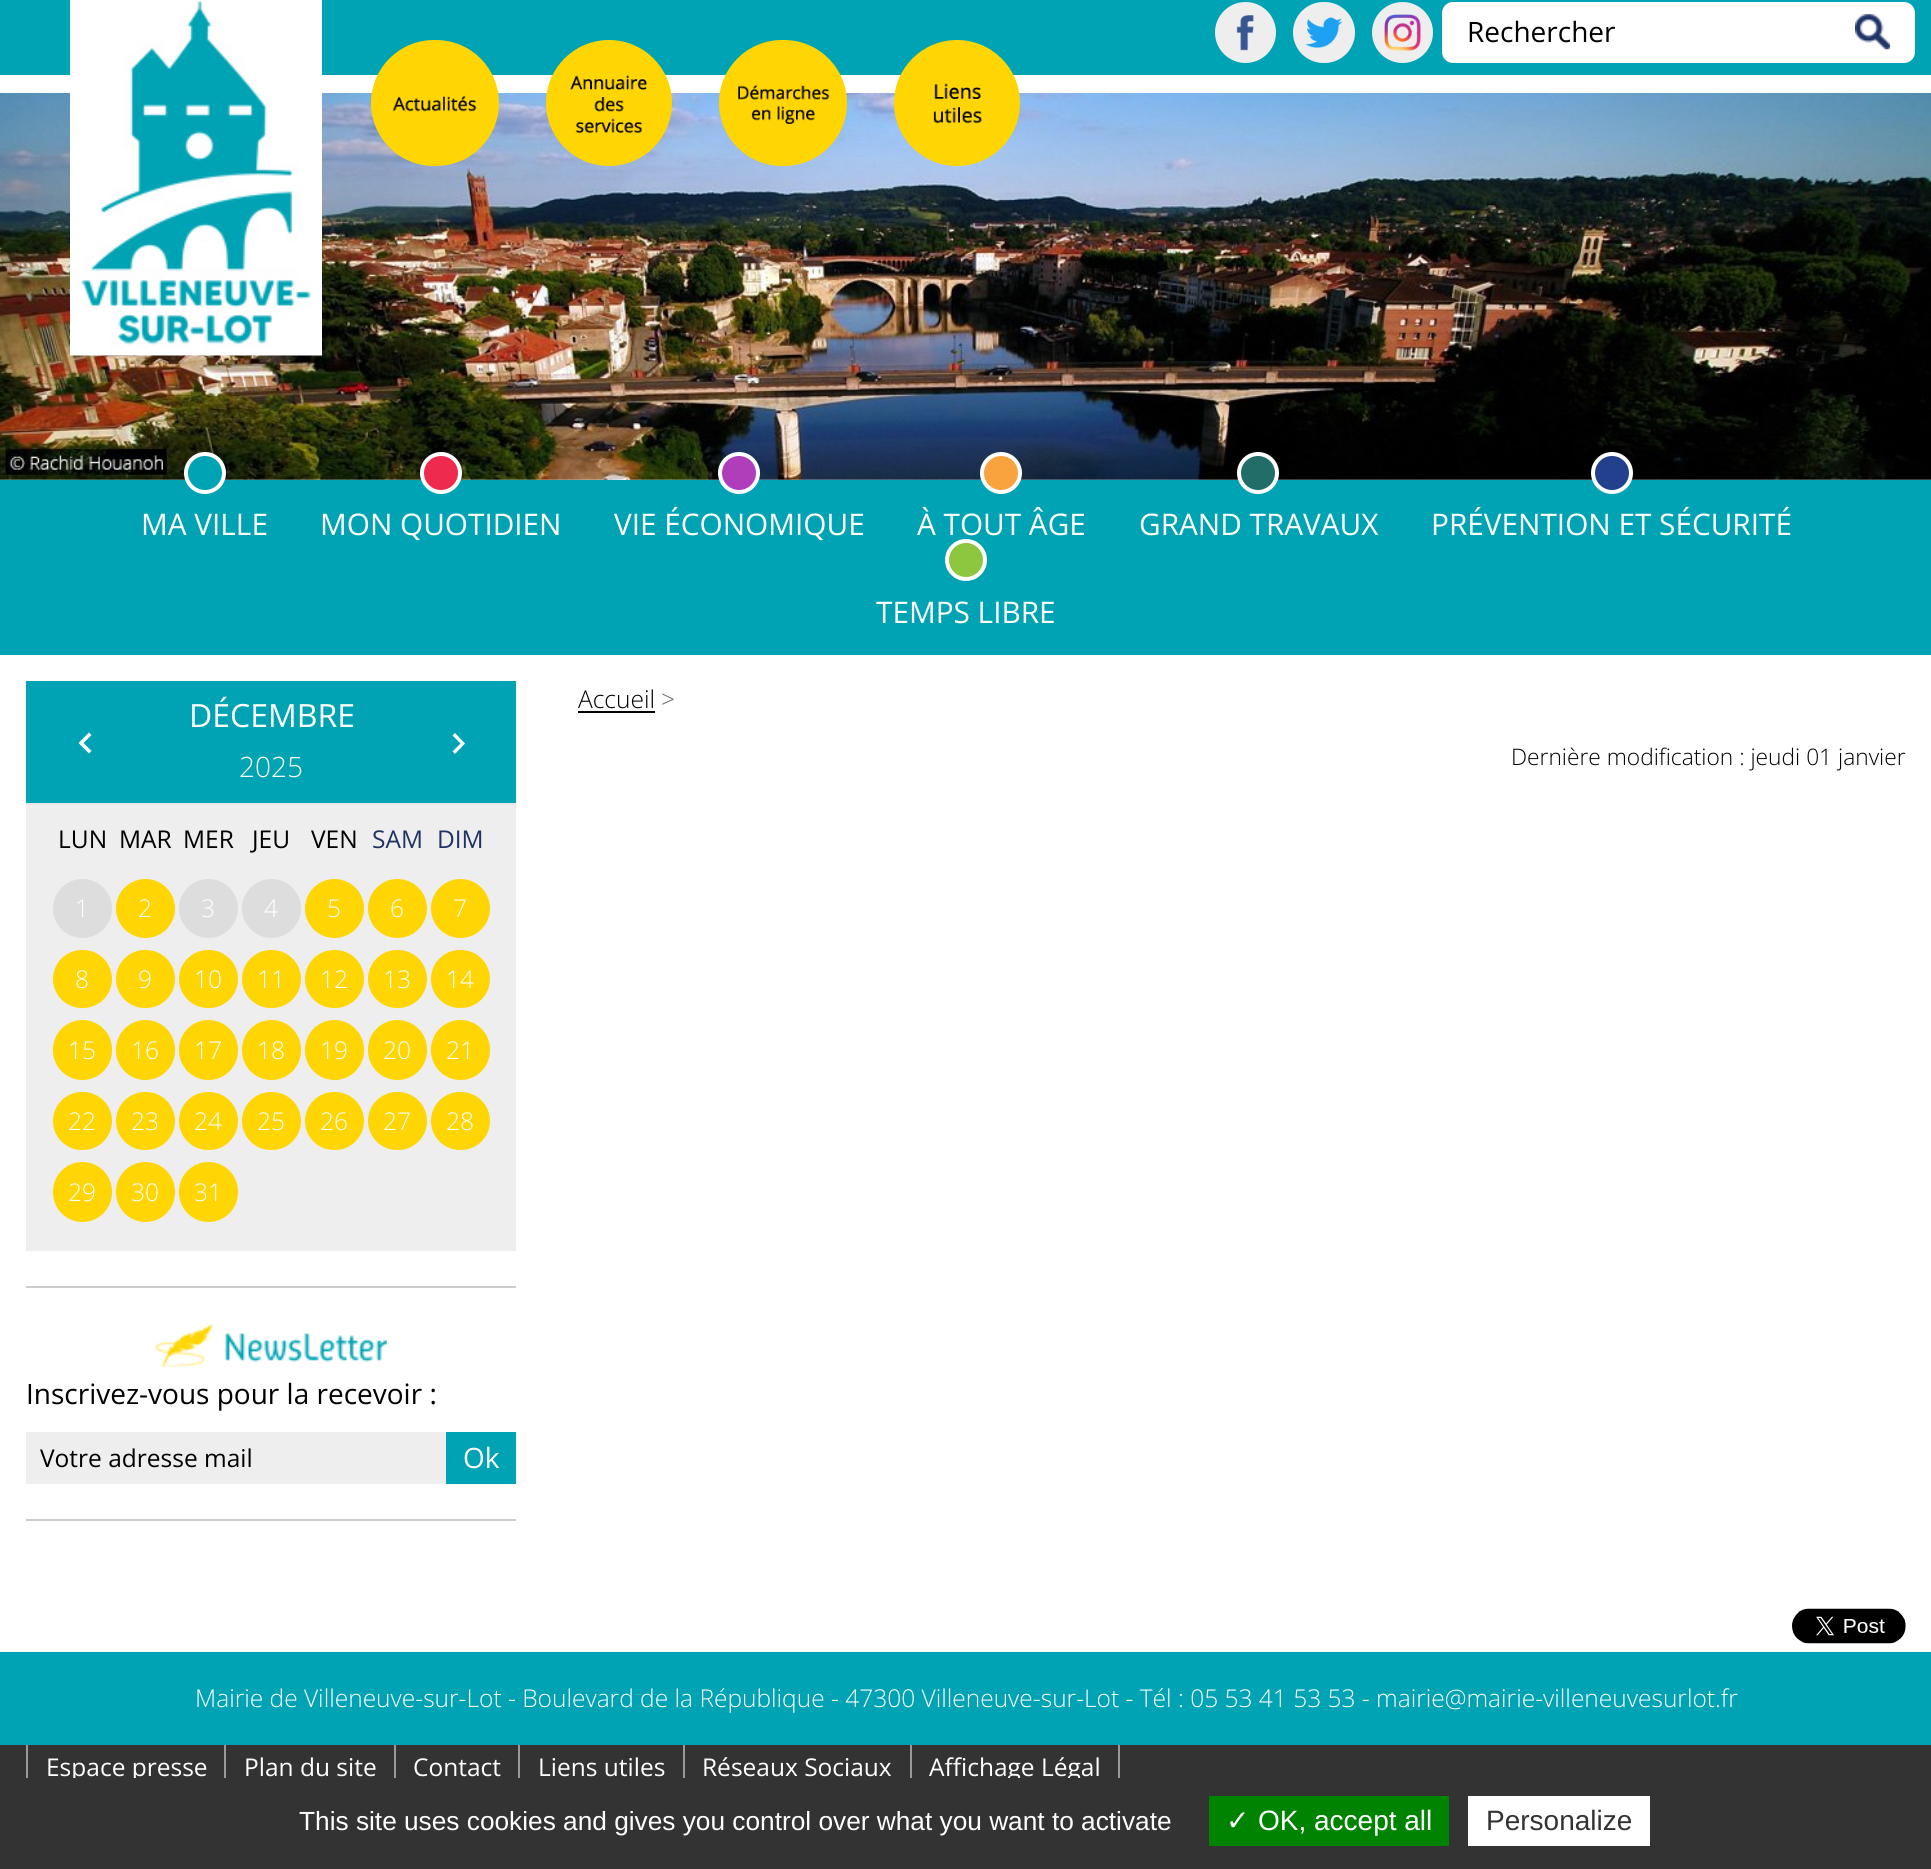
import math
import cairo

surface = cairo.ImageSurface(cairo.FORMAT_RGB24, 1931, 1869)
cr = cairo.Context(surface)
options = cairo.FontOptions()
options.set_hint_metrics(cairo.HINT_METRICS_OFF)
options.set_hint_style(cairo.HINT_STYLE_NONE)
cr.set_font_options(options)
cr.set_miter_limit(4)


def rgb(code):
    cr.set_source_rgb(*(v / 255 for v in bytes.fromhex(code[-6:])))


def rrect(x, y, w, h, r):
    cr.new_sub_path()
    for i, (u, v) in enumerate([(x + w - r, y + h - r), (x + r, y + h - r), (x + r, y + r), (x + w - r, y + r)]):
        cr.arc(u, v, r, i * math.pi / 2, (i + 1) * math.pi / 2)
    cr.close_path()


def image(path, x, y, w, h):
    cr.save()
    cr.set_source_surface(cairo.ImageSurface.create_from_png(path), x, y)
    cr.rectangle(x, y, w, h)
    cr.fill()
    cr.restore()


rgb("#ffffff")
cr.paint()
rgb("#00a3b4")
cr.rectangle(0, 0, 1931, 75)
cr.fill()
image("img/6.png", 0, 93, 1931, 387)
image("img/1.png", 70, 0, 252, 356)
rgb("#eeeeee")
cr.arc(1245.5, 32.5, 30.5, 0, 2 * math.pi)
cr.fill()
image("img/2.png", 1236, 15, 18, 36)
rrect(1293, 2, 62, 61, 30.5)
cr.fill()
image("img/3.png", 1305, 17, 38, 31)
cr.arc(1402.5, 32.5, 30.5, 0, 2 * math.pi)
cr.fill()
image("img/4.png", 1384, 14, 37, 37)
rgb("#ffffff")
rrect(1442, 2, 473, 61, 11)
cr.fill()
image("img/5.png", 1855, 14, 35, 36)
rgb("#ffd503")
rrect(371, 40, 128, 126, 63)
cr.fill()
image("img/7.png", 392, 95, 85, 17)
cr.arc(609, 103, 63, 0, 2 * math.pi)
cr.fill()
image("img/8.png", 570, 75, 77, 58)
rrect(719, 40, 128, 126, 63)
cr.fill()
image("img/9.png", 738, 85, 92, 39)
cr.arc(957, 103, 63, 0, 2 * math.pi)
cr.fill()
image("img/10.png", 933, 83, 49, 41)
rgb("#00a3b4")
cr.rectangle(0, 480, 1931, 175)
cr.fill()
cr.arc(205, 473, 19, 0, 2 * math.pi)
cr.fill_preserve()
rgb("#ffffff")
cr.set_line_width(4)
cr.stroke()
rgb("#ee2b4e")
cr.arc(441, 473, 19, 0, 2 * math.pi)
cr.fill_preserve()
rgb("#ffffff")
cr.stroke()
rgb("#b03eba")
cr.arc(739, 473, 19, 0, 2 * math.pi)
cr.fill_preserve()
rgb("#ffffff")
cr.stroke()
rgb("#f9a33f")
cr.arc(1001, 473, 19, 0, 2 * math.pi)
cr.fill_preserve()
rgb("#ffffff")
cr.stroke()
rgb("#226d68")
cr.arc(1258, 473, 19, 0, 2 * math.pi)
cr.fill_preserve()
rgb("#ffffff")
cr.stroke()
rgb("#23408f")
cr.arc(1612, 473, 19, 0, 2 * math.pi)
cr.fill_preserve()
rgb("#ffffff")
cr.stroke()
rgb("#8dc63f")
cr.arc(966, 560, 19, 0, 2 * math.pi)
cr.fill_preserve()
rgb("#ffffff")
cr.stroke()
rgb("#00a3b4")
cr.rectangle(26, 681, 490, 122)
cr.fill()
rgb("#e7e7e7")
cr.rectangle(26, 803, 490, 2)
cr.fill()
rgb("#ffffff")
cr.new_path()
cr.move_to(91.5, 751)
cr.line_to(89, 753.5)
cr.line_to(78.5, 743)
cr.line_to(89, 732.5)
cr.line_to(91.5, 735)
cr.line_to(83.5, 743)
cr.close_path()
cr.fill()
cr.new_path()
cr.move_to(452.5, 751.5)
cr.line_to(460.5, 743.5)
cr.line_to(452.5, 735.5)
cr.line_to(455, 733)
cr.line_to(465, 743.5)
cr.line_to(455, 754)
cr.close_path()
cr.fill()
rgb("#eeeeee")
cr.rectangle(26, 805, 490, 446)
cr.fill()
rgb("#dddddd")
cr.arc(82.5, 908.5, 29.5, 0, 2 * math.pi)
cr.fill()
rgb("#ffd503")
cr.arc(145.5, 908.5, 29.5, 0, 2 * math.pi)
cr.fill()
rgb("#dddddd")
cr.arc(208.5, 908.5, 29.5, 0, 2 * math.pi)
cr.fill()
cr.arc(271.5, 908.5, 29.5, 0, 2 * math.pi)
cr.fill()
rgb("#ffd503")
cr.arc(334.5, 908.5, 29.5, 0, 2 * math.pi)
cr.fill()
cr.arc(397.5, 908.5, 29.5, 0, 2 * math.pi)
cr.fill()
cr.arc(460.5, 908.5, 29.5, 0, 2 * math.pi)
cr.fill()
rrect(53, 950, 59, 58, 29)
cr.fill()
rrect(116, 950, 59, 58, 29)
cr.fill()
rrect(179, 950, 59, 58, 29)
cr.fill()
rrect(242, 950, 59, 58, 29)
cr.fill()
rrect(305, 950, 59, 58, 29)
cr.fill()
rrect(368, 950, 59, 58, 29)
cr.fill()
rrect(431, 950, 59, 58, 29)
cr.fill()
rrect(53, 1020, 59, 60, 29.5)
cr.fill()
rrect(116, 1020, 59, 60, 29.5)
cr.fill()
rrect(179, 1020, 59, 60, 29.5)
cr.fill()
rrect(242, 1020, 59, 60, 29.5)
cr.fill()
rrect(305, 1020, 59, 60, 29.5)
cr.fill()
rrect(368, 1020, 59, 60, 29.5)
cr.fill()
rrect(431, 1020, 59, 60, 29.5)
cr.fill()
rrect(53, 1092, 59, 58, 29)
cr.fill()
rrect(116, 1092, 59, 58, 29)
cr.fill()
rrect(179, 1092, 59, 58, 29)
cr.fill()
rrect(242, 1092, 59, 58, 29)
cr.fill()
rrect(305, 1092, 59, 58, 29)
cr.fill()
rrect(368, 1092, 59, 58, 29)
cr.fill()
rrect(431, 1092, 59, 58, 29)
cr.fill()
rrect(53, 1162, 59, 60, 29.5)
cr.fill()
rrect(116, 1162, 59, 60, 29.5)
cr.fill()
rrect(179, 1162, 59, 60, 29.5)
cr.fill()
rgb("#cccccc")
cr.rectangle(26, 1286, 490, 2)
cr.fill()
image("img/11.png", 155, 1323, 232, 44)
for x, y, w, h, color in [
    (26, 1432, 420, 52, "#eeeeee"),
    (446, 1432, 70, 52, "#00a3b4"),
    (26, 1519, 490, 2, "#cccccc"),
    (578, 711, 77, 2, "#000000"),
]:
    rgb(color)
    cr.rectangle(x, y, w, h)
    cr.fill()
image("img/12.png", 1792, 1608, 114, 36)
for x, y, w, h, color in [
    (0, 1745, 1931, 33, "#333333"),
    (0, 1652, 1931, 93, "#00a3b4"),
    (224, 1745, 2, 33, "#999999"),
    (26, 1745, 2, 33, "#999999"),
    (394, 1745, 2, 33, "#999999"),
    (518, 1745, 2, 33, "#999999"),
    (683, 1745, 2, 33, "#999999"),
    (910, 1745, 2, 33, "#999999"),
    (1118, 1745, 2, 33, "#999999"),
]:
    rgb(color)
    cr.rectangle(x, y, w, h)
    cr.fill()
cr.select_font_face("Open Sans")
cr.set_font_size(28)
rgb("#000000")
cr.move_to(1467, 42)
cr.show_text("Rechercher")
cr.set_font_size(29.75)
rgb("#ffffff")
for x, y, s in [
    (141, 535, "MA VILLE"),
    (320, 535, "MON QUOTIDIEN"),
    (614, 535, "VIE ÉCONOMIQUE"),
    (917, 535, "À TOUT ÂGE"),
    (1139, 535, "GRAND TRAVAUX"),
    (1431, 535, "PRÉVENTION ET SÉCURITÉ"),
    (876, 623, "TEMPS LIBRE"),
]:
    cr.move_to(x, y)
    cr.show_text(s)
cr.set_font_size(32)
cr.move_to(189, 727)
cr.show_text("DÉCEMBRE")
cr.select_font_face("Open Sans Light")
cr.set_font_size(28)
cr.move_to(239, 777)
cr.show_text("2025")
cr.select_font_face("Open Sans")
cr.set_font_size(24.5)
rgb("#000000")
for x, y, s in [
    (58, 848, "LUN"),
    (119, 848, "MAR"),
    (183, 848, "MER"),
    (252, 848, "JEU"),
    (311, 848, "VEN"),
]:
    cr.move_to(x, y)
    cr.show_text(s)
rgb("#203365")
cr.move_to(372, 848)
cr.show_text("SAM")
cr.move_to(437, 848)
cr.show_text("DIM")
cr.select_font_face("Open Sans Light")
rgb("#ffffff")
for x, y, s in [
    (75, 917, "1"),
    (138, 917, "2"),
    (201, 917, "3"),
    (264, 917, "4"),
    (327, 917, "5"),
    (390, 917, "6"),
    (453, 917, "7"),
    (75, 988, "8"),
    (138, 988, "9"),
    (194, 988, "10"),
    (257, 988, "11"),
    (320, 988, "12"),
    (383, 988, "13"),
    (446, 988, "14"),
    (68, 1059, "15"),
    (131, 1059, "16"),
    (194, 1059, "17"),
    (257, 1059, "18"),
    (320, 1059, "19"),
    (383, 1059, "20"),
    (446, 1059, "21"),
    (68, 1130, "22"),
    (131, 1130, "23"),
    (194, 1130, "24"),
    (257, 1130, "25"),
    (320, 1130, "26"),
    (383, 1130, "27"),
    (446, 1130, "28"),
    (68, 1201, "29"),
    (131, 1201, "30"),
    (194, 1201, "31"),
]:
    cr.move_to(x, y)
    cr.show_text(s)
cr.select_font_face("Open Sans")
cr.set_font_size(28)
rgb("#000000")
cr.move_to(26, 1404)
cr.show_text("Inscrivez-vous pour la recevoir :")
cr.set_font_size(24.5)
cr.move_to(40, 1467)
cr.show_text("Votre adresse mail")
cr.set_font_size(28)
rgb("#ffffff")
cr.move_to(463, 1468)
cr.show_text("Ok")
cr.select_font_face("Open Sans Light")
cr.set_font_size(24.5)
rgb("#000000")
cr.move_to(578, 708)
cr.show_text("Accueil")
rgb("#666666")
cr.move_to(661, 708)
cr.show_text(">")
cr.set_font_size(22.75)
rgb("#000000")
cr.move_to(1511, 765)
cr.show_text("Dernière modification : jeudi 01 janvier")
cr.set_font_size(24.5)
rgb("#ffffff")
cr.move_to(195, 1707)
cr.show_text("Mairie de Villeneuve-sur-Lot - Boulevard de la République - 47300 Villeneuve-sur-Lot - Tél : 05 53 41 53 53 - mairie@mairie-villeneuvesurlot.fr")
cr.select_font_face("Open Sans")
for x, y, s in [
    (46, 1776, "Espace presse"),
    (244, 1776, "Plan du site"),
    (413, 1776, "Contact"),
    (538, 1776, "Liens utiles"),
    (702, 1776, "Réseaux Sociaux"),
    (929, 1776, "Affichage Légal"),
]:
    cr.move_to(x, y)
    cr.show_text(s)
rgb("#333333")
cr.rectangle(0, 1778, 1931, 91)
cr.fill()
cr.select_font_face("Liberation Sans")
cr.set_font_size(26.25)
rgb("#ffffff")
cr.move_to(299, 1830)
cr.show_text("This site uses cookies and gives you control over what you want to activate")
rgb("#008300")
cr.rectangle(1209, 1796, 240, 50)
cr.fill()
cr.select_font_face("DejaVu Sans")
cr.set_font_size(28)
rgb("#ffffff")
cr.move_to(1226, 1830)
cr.show_text("✓")
cr.select_font_face("Liberation Sans")
cr.move_to(1258, 1830)
cr.show_text("OK, accept all")
cr.rectangle(1468, 1796, 182, 50)
cr.fill()
rgb("#333333")
cr.move_to(1486, 1830)
cr.show_text("Personalize")
surface.write_to_png("page.png")
